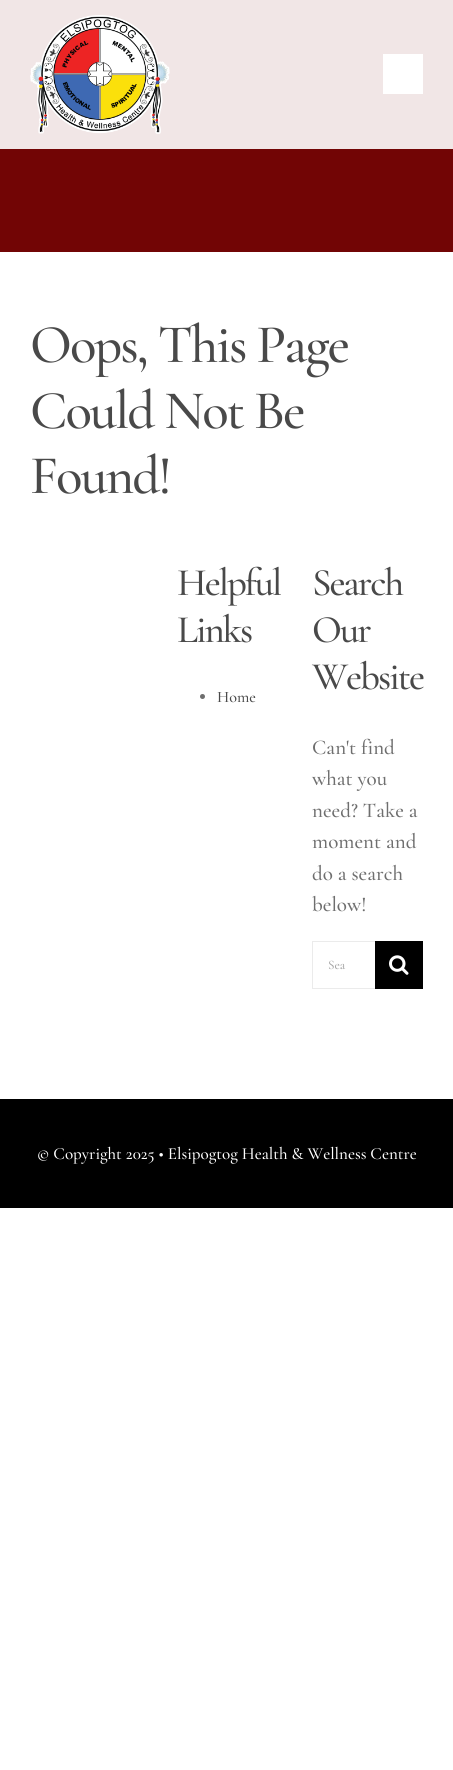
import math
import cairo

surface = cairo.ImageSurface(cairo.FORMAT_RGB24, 453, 1770)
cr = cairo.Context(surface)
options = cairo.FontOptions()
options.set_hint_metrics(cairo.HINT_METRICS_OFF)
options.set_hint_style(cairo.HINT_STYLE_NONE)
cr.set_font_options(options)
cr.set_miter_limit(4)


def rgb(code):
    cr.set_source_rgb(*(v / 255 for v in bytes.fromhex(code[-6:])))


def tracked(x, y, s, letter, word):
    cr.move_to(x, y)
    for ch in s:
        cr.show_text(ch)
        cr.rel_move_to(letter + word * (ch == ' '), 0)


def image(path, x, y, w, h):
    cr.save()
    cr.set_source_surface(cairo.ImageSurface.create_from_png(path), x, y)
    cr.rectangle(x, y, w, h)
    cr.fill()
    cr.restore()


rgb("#ffffff")
cr.paint()
rgb("#720505")
cr.rectangle(0, 0, 453, 252)
cr.fill()
cr.set_source_rgba(1, 1, 1, 0.9)
cr.rectangle(0, 0, 453, 149)
cr.fill()
image("img/1.png", 30, 15, 140, 119)
rgb("#ffffff")
cr.rectangle(383, 54, 40, 40)
cr.fill()
rgb("#6e6e6e")
cr.arc(202.5, 696.5, 2.5, 0, 2 * math.pi)
cr.fill()
for x, y, w, h, color in [
    (312, 941, 63, 1, "#ebebeb"),
    (312, 988, 63, 1, "#ebebeb"),
    (312, 941, 1, 48, "#ebebeb"),
    (375, 941, 48, 48, "#000000"),
]:
    rgb(color)
    cr.rectangle(x, y, w, h)
    cr.fill()
image("img/2.png", 389, 955, 20, 20)
cr.rectangle(0, 1099, 453, 109)
cr.fill()
cr.select_font_face("Cormorant Garamond Medium")
cr.set_font_size(54.75)
rgb("#494949")
for x, y, s in [
    (30, 362, "Oops, This Page"),
    (30, 428, "Could Not Be"),
    (30, 493, "Found!"),
]:
    tracked(x, y, s, -2, 0)
cr.set_font_size(39)
tracked(177, 595, "Helpful", -2, 0)
tracked(177, 642, "Links", -2, 0)
cr.set_font_size(16)
cr.move_to(217, 702)
cr.show_text("Home")
cr.set_font_size(39)
for x, y, s in [
    (312, 595, "Search"),
    (312, 642, "Our"),
    (312, 689, "Website"),
]:
    tracked(x, y, s, -2, 0)
cr.set_font_size(21)
rgb("#6e6e6e")
for x, y, s in [
    (312, 754, "Can't find"),
    (312, 785, "what you"),
    (312, 817, "need? Take a"),
    (312, 848, "moment and"),
    (312, 880, "do a search"),
    (312, 911, "below!"),
]:
    cr.move_to(x, y)
    cr.show_text(s)
cr.set_font_size(13)
rgb("#a6a6a6")
cr.move_to(328, 969)
cr.show_text("Sea")
cr.set_font_size(17)
rgb("#ffffff")
cr.move_to(37, 1159)
cr.show_text("© Copyright 2025 • Elsipogtog Health & Wellness Centre")
surface.write_to_png("page.png")
